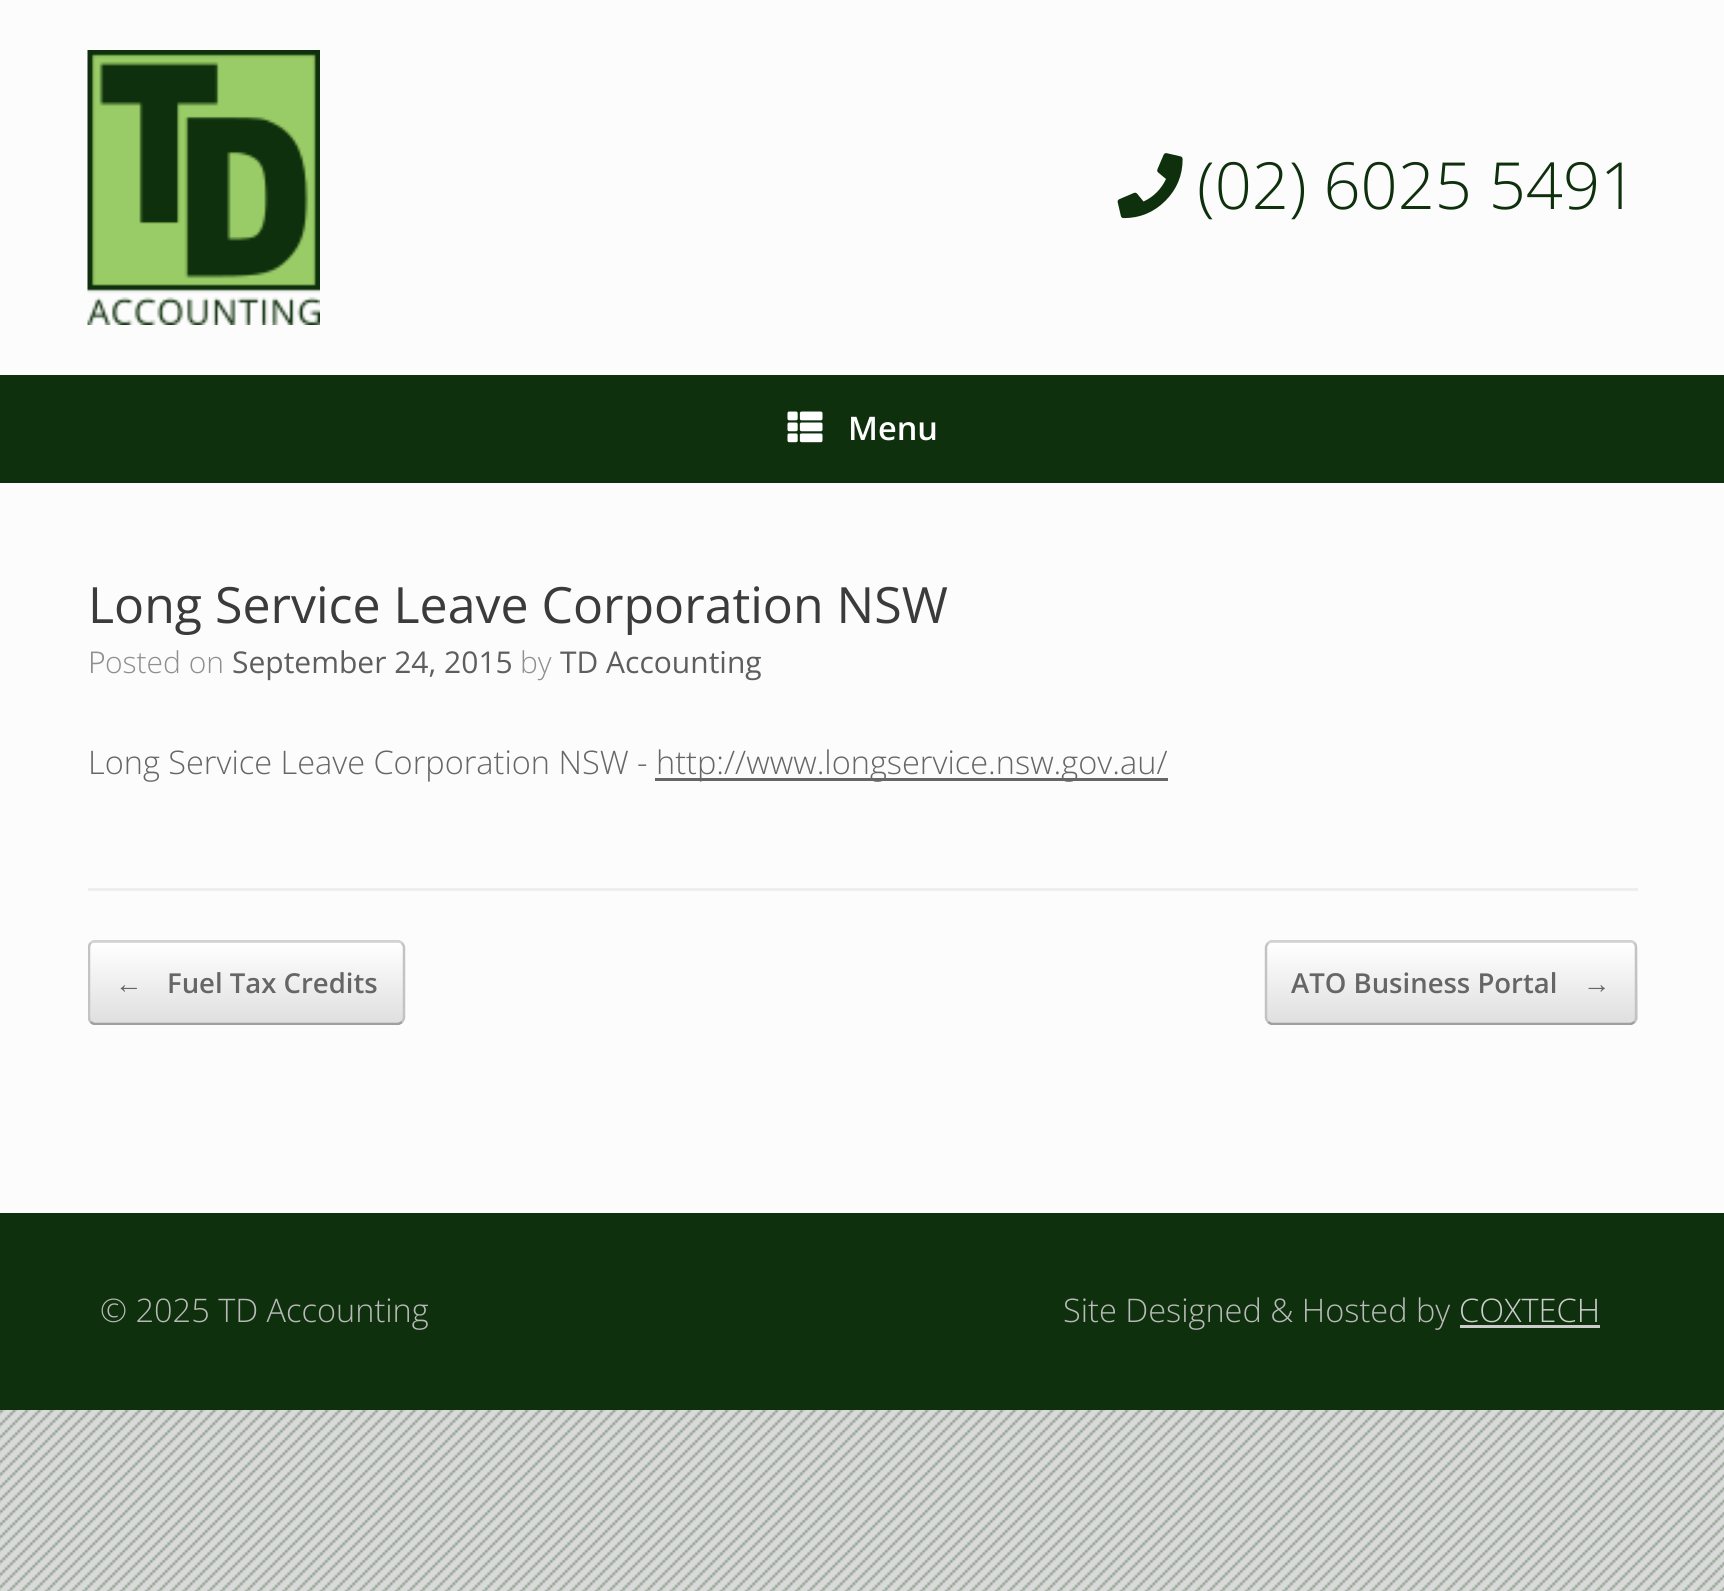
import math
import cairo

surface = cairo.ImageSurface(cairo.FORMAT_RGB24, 1724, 1591)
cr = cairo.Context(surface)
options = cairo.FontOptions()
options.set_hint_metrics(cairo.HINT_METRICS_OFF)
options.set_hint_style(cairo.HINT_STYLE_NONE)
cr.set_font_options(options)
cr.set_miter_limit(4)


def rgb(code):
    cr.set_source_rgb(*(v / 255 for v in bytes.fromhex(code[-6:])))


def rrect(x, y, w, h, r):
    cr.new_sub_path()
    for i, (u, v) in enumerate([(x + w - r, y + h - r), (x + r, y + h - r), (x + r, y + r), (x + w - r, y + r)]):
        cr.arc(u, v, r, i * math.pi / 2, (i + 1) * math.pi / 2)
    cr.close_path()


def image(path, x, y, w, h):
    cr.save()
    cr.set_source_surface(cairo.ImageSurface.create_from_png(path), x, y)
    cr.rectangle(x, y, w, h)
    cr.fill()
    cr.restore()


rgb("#dadada")
cr.paint()
image("img/1.png", 0, 1410, 1724, 181)
rgb("#fcfcfc")
cr.rectangle(0, 0, 1724, 375)
cr.fill()
image("img/2.png", 87, 50, 233, 275)
image("img/3.png", 1117, 153, 66, 66)
rgb("#0e300c")
cr.rectangle(0, 375, 1724, 108)
cr.fill()
image("img/4.png", 787, 411, 36, 32)
for x, y, w, h, color in [
    (0, 483, 1724, 730, "#fcfcfc"),
    (88, 888, 1550, 3, "#eeeeee"),
    (655, 778, 513, 3, "#666666"),
]:
    rgb(color)
    cr.rectangle(x, y, w, h)
    cr.fill()
cr.save()
rrect(88, 940, 317, 85, 8)
cr.clip()
gradient = cairo.LinearGradient(90, 943, 90, 863)
gradient.add_color_stop_rgba(0, 0.875, 0.875, 0.875, 1)
gradient.add_color_stop_rgba(1, 1, 1, 1, 1)
cr.set_source(gradient)
cr.rectangle(88, 940, 317, 3)
cr.fill()
gradient = cairo.LinearGradient(90, 1023, 90, 943)
gradient.add_color_stop_rgba(0, 0.875, 0.875, 0.875, 1)
gradient.add_color_stop_rgba(1, 1, 1, 1, 1)
cr.set_source(gradient)
cr.rectangle(88, 943, 317, 80)
cr.fill()
cr.restore()
cr.save()
cr.rectangle(88, 940, 1550, 85)
cr.clip()
cr.new_path()
cr.move_to(90.5, 943)
cr.curve_to(92, 942, 93.5, 941, 95, 941)
cr.line_to(397.5, 941)
cr.curve_to(399, 941, 400.5, 942, 402, 943)
rgb("#d2d2d2")
cr.set_line_width(2.5)
cr.stroke()
cr.restore()
cr.new_path()
cr.move_to(402, 943)
cr.curve_to(403, 944.5, 404, 946, 404, 947.5)
cr.line_to(404, 1017.5)
cr.curve_to(404, 1019, 403, 1020.5, 402, 1022)
rgb("#c3c3c3")
cr.set_line_width(2.5)
cr.stroke()
cr.save()
cr.rectangle(88, 940, 1550, 85)
cr.clip()
cr.new_path()
cr.move_to(402, 1022)
cr.curve_to(400.5, 1023, 399, 1024, 397.5, 1024)
cr.line_to(95, 1024)
cr.curve_to(93.5, 1024, 92, 1023, 90.5, 1022)
rgb("#9f9f9f")
cr.stroke()
cr.new_path()
cr.move_to(90.5, 1022)
cr.curve_to(89.5, 1020.5, 89, 1019, 89, 1017.5)
cr.line_to(89, 947.5)
cr.curve_to(89, 946, 89.5, 944.5, 90.5, 943)
rgb("#c3c3c3")
cr.stroke()
cr.restore()
cr.save()
rrect(1265, 940, 373, 85, 8)
cr.clip()
gradient = cairo.LinearGradient(1268, 943, 1268, 863)
gradient.add_color_stop_rgba(0, 0.875, 0.875, 0.875, 1)
gradient.add_color_stop_rgba(1, 1, 1, 1, 1)
cr.set_source(gradient)
cr.rectangle(1265, 940, 373, 3)
cr.fill()
gradient = cairo.LinearGradient(1268, 1023, 1268, 943)
gradient.add_color_stop_rgba(0, 0.875, 0.875, 0.875, 1)
gradient.add_color_stop_rgba(1, 1, 1, 1, 1)
cr.set_source(gradient)
cr.rectangle(1265, 943, 373, 80)
cr.fill()
gradient = cairo.LinearGradient(1268, 1103, 1268, 1023)
gradient.add_color_stop_rgba(0, 0.875, 0.875, 0.875, 1)
gradient.add_color_stop_rgba(1, 1, 1, 1, 1)
cr.set_source(gradient)
cr.rectangle(1265, 1023, 373, 2)
cr.fill()
cr.restore()
cr.save()
cr.rectangle(88, 940, 1550, 85)
cr.clip()
cr.new_path()
cr.move_to(1268, 943)
cr.curve_to(1269.5, 942, 1271, 941, 1272.5, 941)
cr.line_to(1630, 941)
cr.curve_to(1631.5, 941, 1633, 942, 1634.5, 943)
rgb("#d2d2d2")
cr.stroke()
cr.restore()
cr.new_path()
cr.move_to(1634.5, 943)
cr.curve_to(1635.5, 944.5, 1636, 946, 1636, 947.5)
cr.line_to(1636, 1017.5)
cr.curve_to(1636, 1019, 1635.5, 1020.5, 1634.5, 1022)
cr.stroke()
cr.save()
cr.rectangle(88, 940, 1550, 85)
cr.clip()
cr.new_path()
cr.move_to(1634.5, 1022)
cr.curve_to(1633, 1023, 1631.5, 1024, 1630, 1024)
cr.line_to(1272.5, 1024)
cr.curve_to(1271, 1024, 1269.5, 1023, 1268, 1022)
rgb("#9f9f9f")
cr.stroke()
cr.restore()
cr.new_path()
cr.move_to(1268, 1022)
cr.curve_to(1267, 1020.5, 1266, 1019, 1266, 1017.5)
cr.line_to(1266, 947.5)
cr.curve_to(1266, 946, 1267, 944.5, 1268, 943)
cr.stroke()
rgb("#0e300c")
cr.rectangle(0, 1213, 1724, 197)
cr.fill()
rgb("#cccccc")
cr.rectangle(1460, 1325, 140, 3)
cr.fill()
cr.select_font_face("Open Sans Light")
cr.set_font_size(65)
rgb("#0e300c")
cr.move_to(1197, 209)
cr.show_text("(02) 6025 5491")
cr.select_font_face("Open Sans SemiBold")
cr.set_font_size(32.5)
rgb("#ffffff")
cr.move_to(848, 440)
cr.show_text("Menu")
cr.select_font_face("Open Sans")
cr.set_font_size(50)
rgb("#3b3b3b")
cr.move_to(88, 623)
cr.show_text("Long Service Leave Corporation NSW")
cr.select_font_face("Noto Sans Light")
cr.set_font_size(30)
rgb("#8f8f8f")
cr.move_to(88, 673)
cr.show_text("P")
cr.select_font_face("Open Sans Light")
cr.move_to(105, 673)
cr.show_text("osted on")
cr.select_font_face("Open Sans")
rgb("#5e5e5e")
cr.move_to(232, 673)
cr.show_text("September 24, 2015")
cr.select_font_face("Open Sans Light")
rgb("#8f8f8f")
cr.move_to(520, 673)
cr.show_text("by")
cr.select_font_face("Open Sans")
rgb("#5e5e5e")
cr.move_to(560, 673)
cr.show_text("TD Accounting")
cr.select_font_face("Open Sans Light")
cr.set_font_size(32.5)
rgb("#666666")
cr.move_to(88, 774)
cr.show_text("Long Service Leave Corporation NSW -")
cr.move_to(656, 774)
cr.show_text("http://www.longservice.nsw.gov.au/")
cr.select_font_face("Liberation Serif", cairo.FONT_SLANT_NORMAL, cairo.FONT_WEIGHT_BOLD)
cr.set_font_size(27.5)
cr.move_to(115, 993)
cr.show_text("←")
cr.select_font_face("Open Sans SemiBold")
cr.move_to(167, 993)
cr.show_text("Fuel Tax Credits")
cr.move_to(1291, 993)
cr.show_text("ATO Business Portal")
cr.select_font_face("Liberation Serif", cairo.FONT_SLANT_NORMAL, cairo.FONT_WEIGHT_BOLD)
cr.move_to(1583, 993)
cr.show_text("→")
cr.select_font_face("Open Sans Light")
cr.set_font_size(32.5)
rgb("#b9b9b9")
cr.move_to(100, 1322)
cr.show_text("© 2025 TD Accounting")
cr.move_to(1063, 1322)
cr.show_text("Site Designed & Hosted by")
rgb("#cccccc")
cr.move_to(1459, 1322)
cr.show_text("COXTECH")
surface.write_to_png("page.png")
